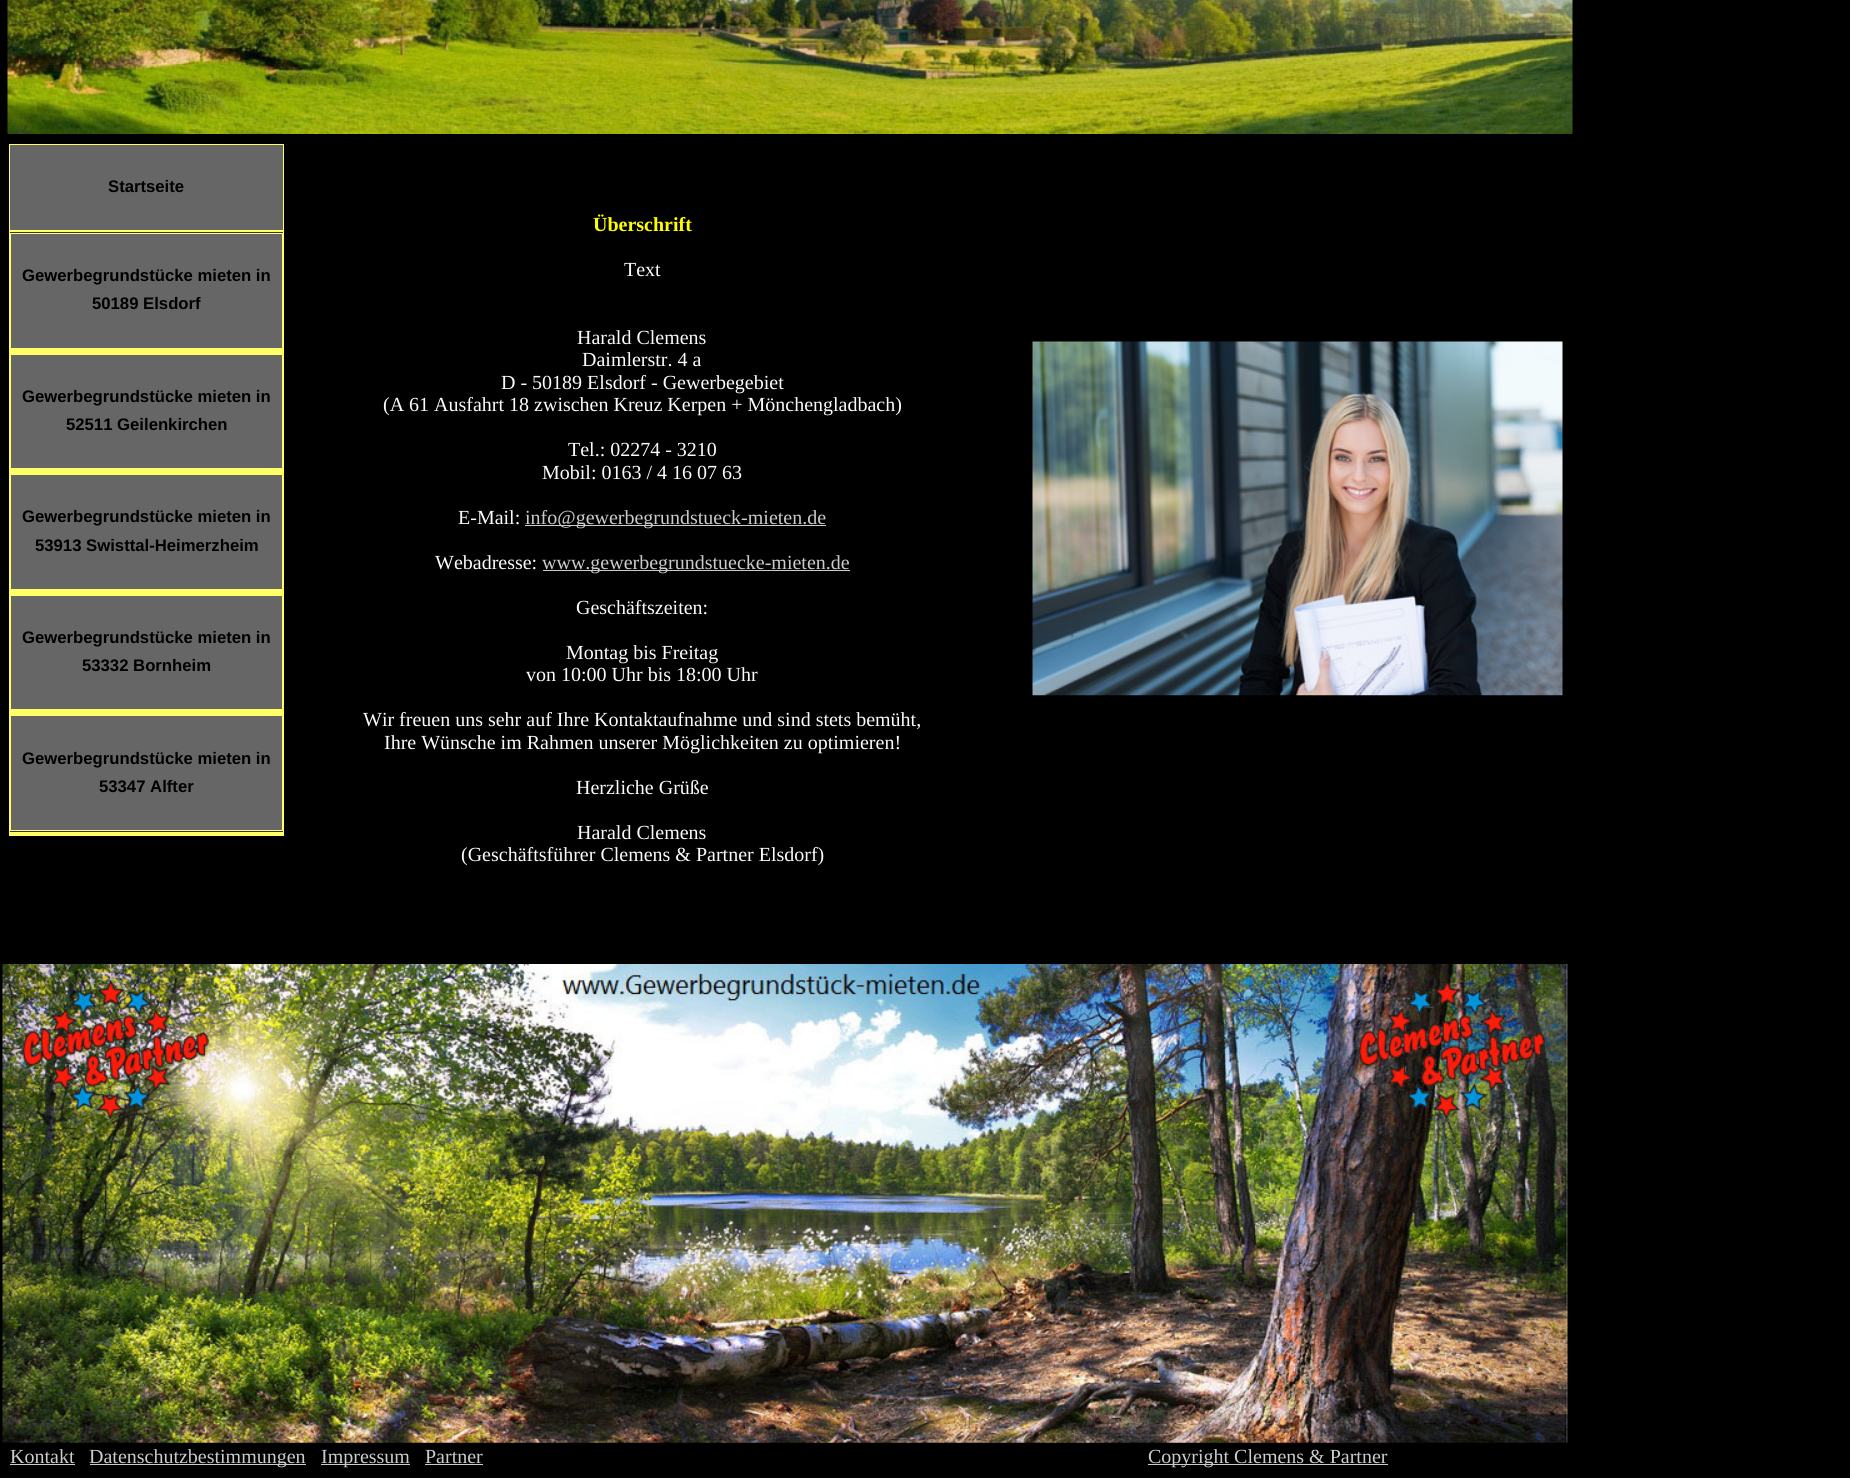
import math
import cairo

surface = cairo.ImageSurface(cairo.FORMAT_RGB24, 1850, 1478)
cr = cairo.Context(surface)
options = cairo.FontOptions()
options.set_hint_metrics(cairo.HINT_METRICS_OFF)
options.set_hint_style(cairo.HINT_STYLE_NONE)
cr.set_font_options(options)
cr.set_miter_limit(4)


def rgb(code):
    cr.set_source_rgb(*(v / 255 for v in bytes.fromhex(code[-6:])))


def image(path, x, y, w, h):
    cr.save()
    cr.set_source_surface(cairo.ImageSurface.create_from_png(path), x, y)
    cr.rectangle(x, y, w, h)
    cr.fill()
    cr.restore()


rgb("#000000")
cr.paint()
image("img/1.png", 7, 0, 1566, 134)
rgb("#666666")
cr.rectangle(9.5, 144.5, 274, 86)
cr.fill_preserve()
rgb("#ffff66")
cr.set_line_width(1)
cr.stroke()
rgb("#333333")
cr.rectangle(10, 232, 273, 1)
cr.fill()
cr.rectangle(9.5, 231.5, 274, 118)
rgb("#ffff66")
cr.stroke()
rgb("#666666")
cr.rectangle(10.5, 233.5, 272, 115)
cr.fill_preserve()
rgb("#ffff66")
cr.stroke()
cr.rectangle(9, 350, 275, 3)
cr.fill()
cr.rectangle(9.5, 353.5, 274, 116)
cr.stroke()
rgb("#666666")
cr.rectangle(10.5, 354.5, 272, 114)
cr.fill_preserve()
rgb("#ffff66")
cr.stroke()
cr.rectangle(9, 470, 275, 3)
cr.fill()
cr.rectangle(9.5, 473.5, 274, 117)
cr.stroke()
rgb("#666666")
cr.rectangle(10.5, 474.5, 272, 115)
cr.fill_preserve()
rgb("#ffff66")
cr.stroke()
cr.rectangle(9, 591, 275, 3)
cr.fill()
cr.rectangle(9.5, 594.5, 274, 116)
cr.stroke()
rgb("#666666")
cr.rectangle(10.5, 595.5, 272, 114)
cr.fill_preserve()
rgb("#ffff66")
cr.stroke()
cr.rectangle(9, 711, 275, 3)
cr.fill()
rgb("#333333")
cr.rectangle(10, 831, 273, 1)
cr.fill()
cr.rectangle(9.5, 714.5, 274, 118)
rgb("#ffff66")
cr.stroke()
rgb("#666666")
cr.rectangle(10.5, 715.5, 272, 115)
cr.fill_preserve()
rgb("#ffff66")
cr.stroke()
for x, y, w, h, color in [
    (9, 833, 275, 3, "#ffff66"),
    (525, 525, 301, 1, "#cccccc"),
    (543, 570, 307, 1, "#cccccc"),
]:
    rgb(color)
    cr.rectangle(x, y, w, h)
    cr.fill()
image("img/2.png", 1032, 341, 531, 355)
image("img/3.png", 2, 964, 1566, 479)
for x, y, w, h, color in [
    (10, 1464, 65, 1, "#cccccc"),
    (90, 1464, 216, 1, "#cccccc"),
    (321, 1464, 89, 1, "#cccccc"),
    (425, 1464, 58, 1, "#cccccc"),
    (1148, 1464, 240, 1, "#cccccc"),
]:
    rgb(color)
    cr.rectangle(x, y, w, h)
    cr.fill()
cr.select_font_face("Liberation Sans", cairo.FONT_SLANT_NORMAL, cairo.FONT_WEIGHT_BOLD)
cr.set_font_size(16.7)
rgb("#000000")
for x, y, s in [
    (108, 192, "Startseite"),
    (22, 281, "Gewerbegrundstücke mieten in"),
    (92, 309, "50189 Elsdorf"),
    (22, 402, "Gewerbegrundstücke mieten in"),
    (66, 430, "52511 Geilenkirchen"),
    (22, 522, "Gewerbegrundstücke mieten in"),
    (35, 551, "53913 Swisttal-Heimerzheim"),
    (22, 643, "Gewerbegrundstücke mieten in"),
    (82, 671, "53332 Bornheim"),
    (22, 764, "Gewerbegrundstücke mieten in"),
    (99, 792, "53347 Alfter"),
]:
    cr.move_to(x, y)
    cr.show_text(s)
cr.select_font_face("Liberation Serif", cairo.FONT_SLANT_NORMAL, cairo.FONT_WEIGHT_BOLD)
cr.set_font_size(20)
rgb("#ffff00")
cr.move_to(593, 231)
cr.show_text("Überschrift")
cr.select_font_face("Liberation Serif")
rgb("#fcfcfc")
for x, y, s in [
    (624, 276, "Text"),
    (577, 344, "Harald Clemens"),
    (582, 366, "Daimlerstr. 4 a"),
    (501, 389, "D - 50189 Elsdorf - Gewerbegebiet"),
    (383, 411, "(A 61 Ausfahrt 18 zwischen Kreuz Kerpen + Mönchengladbach)"),
    (568, 456, "Tel.: 02274 - 3210"),
    (542, 479, "Mobil: 0163 / 4 16 07 63"),
    (458, 524, "E-Mail:"),
]:
    cr.move_to(x, y)
    cr.show_text(s)
rgb("#cccccc")
cr.move_to(525, 524)
cr.show_text("info@gewerbegrundstueck-mieten.de")
rgb("#fcfcfc")
cr.move_to(435, 569)
cr.show_text("Webadresse:")
rgb("#cccccc")
cr.move_to(542, 569)
cr.show_text("www.gewerbegrundstuecke-mieten.de")
rgb("#fcfcfc")
for x, y, s in [
    (576, 614, "Geschäftszeiten:"),
    (566, 659, "Montag bis Freitag"),
    (526, 681, "von 10:00 Uhr bis 18:00 Uhr"),
    (363, 726, "Wir freuen uns sehr auf Ihre Kontaktaufnahme und sind stets bemüht,"),
    (384, 749, "Ihre Wünsche im Rahmen unserer Möglichkeiten zu optimieren!"),
    (576, 794, "Herzliche Grüße"),
    (577, 839, "Harald Clemens"),
    (461, 861, "(Geschäftsführer Clemens & Partner Elsdorf)"),
]:
    cr.move_to(x, y)
    cr.show_text(s)
rgb("#cccccc")
for x, y, s in [
    (10, 1463, "Kontakt"),
    (89, 1463, "Datenschutzbestimmungen"),
    (321, 1463, "Impressum"),
    (425, 1463, "Partner"),
    (1148, 1463, "Copyright Clemens & Partner"),
]:
    cr.move_to(x, y)
    cr.show_text(s)
surface.write_to_png("page.png")
